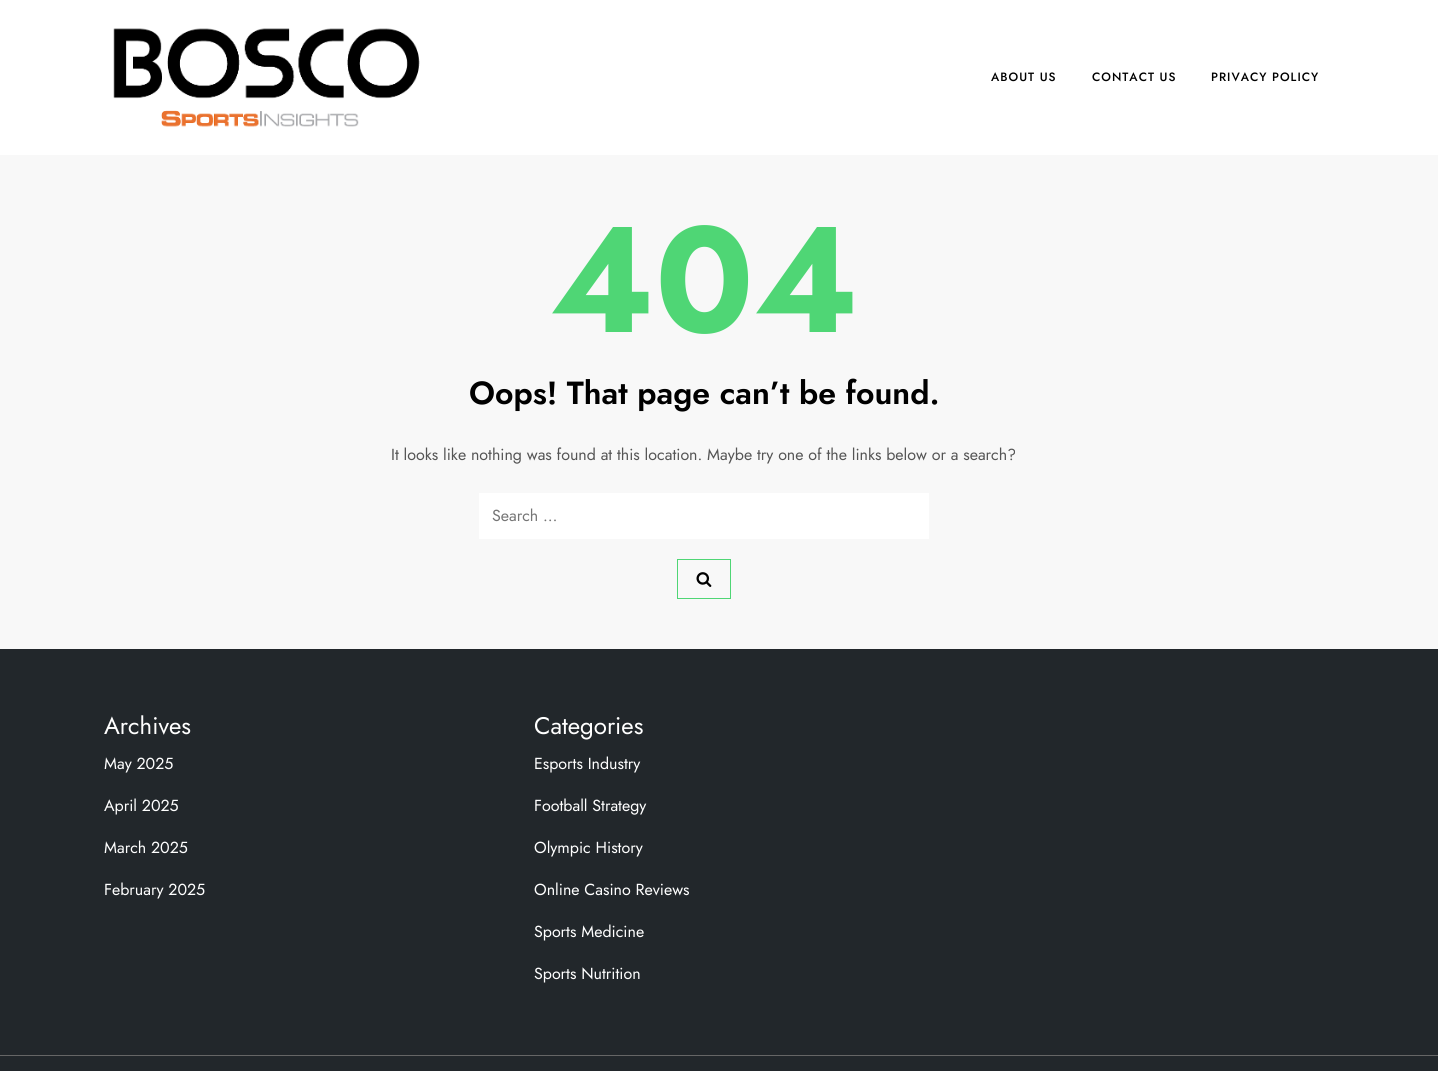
import math
import cairo

surface = cairo.ImageSurface(cairo.FORMAT_RGB24, 1438, 1071)
cr = cairo.Context(surface)
options = cairo.FontOptions()
options.set_hint_metrics(cairo.HINT_METRICS_OFF)
options.set_hint_style(cairo.HINT_STYLE_NONE)
cr.set_font_options(options)
cr.set_miter_limit(4)


def rgb(code):
    cr.set_source_rgb(*(v / 255 for v in bytes.fromhex(code[-6:])))


def tracked(x, y, s, letter, word):
    cr.move_to(x, y)
    for ch in s:
        cr.show_text(ch)
        cr.rel_move_to(letter + word * (ch == ' '), 0)


def image(path, x, y, w, h):
    cr.save()
    cr.set_source_surface(cairo.ImageSurface.create_from_png(path), x, y)
    cr.rectangle(x, y, w, h)
    cr.fill()
    cr.restore()


rgb("#f8f8f8")
cr.paint()
rgb("#ffffff")
cr.rectangle(0, 0, 1438, 155)
cr.fill()
image("img/1.png", 113, 28, 307, 99)
cr.rectangle(479, 493, 450, 46)
cr.fill()
cr.rectangle(677.5, 559.5, 53, 39)
rgb("#4fd675")
cr.set_line_width(1)
cr.stroke()
image("img/2.png", 696, 572, 16, 15)
rgb("#22272b")
cr.rectangle(0, 649, 1438, 422)
cr.fill()
rgb("#666666")
cr.rectangle(0, 1055, 1438, 1)
cr.fill()
cr.select_font_face("Jost Medium")
cr.set_font_size(12)
rgb("#000000")
for x, y, s in [
    (991, 81, "ABOUT US"),
    (1092, 81, "CONTACT US"),
    (1211, 81, "PRIVACY POLICY"),
]:
    tracked(x, y, s, 1, 0)
cr.select_font_face("Jost", cairo.FONT_SLANT_NORMAL, cairo.FONT_WEIGHT_BOLD)
cr.set_font_size(150)
rgb("#4fd675")
cr.move_to(550, 332)
cr.show_text("404")
cr.select_font_face("Jost SemiBold")
cr.set_font_size(32)
rgb("#000000")
cr.move_to(469, 404)
cr.show_text("Oops! That page can’t be found.")
cr.select_font_face("Jost")
cr.set_font_size(16)
rgb("#555555")
cr.move_to(391, 460)
cr.show_text("It looks like nothing was found at this location. Maybe try one of the links below or a search?")
rgb("#757575")
cr.move_to(492, 521)
cr.show_text("Search …")
cr.set_font_size(24)
rgb("#ffffff")
cr.move_to(104, 734)
cr.show_text("Archives")
cr.set_font_size(16)
for x, y, s in [
    (104, 769, "May 2025"),
    (104, 811, "April 2025"),
    (104, 853, "March 2025"),
    (104, 895, "February 2025"),
]:
    cr.move_to(x, y)
    cr.show_text(s)
cr.set_font_size(24)
cr.move_to(534, 734)
cr.show_text("Categories")
cr.set_font_size(16)
for x, y, s in [
    (534, 769, "Esports Industry"),
    (534, 811, "Football Strategy"),
    (534, 853, "Olympic History"),
    (534, 895, "Online Casino Reviews"),
    (534, 937, "Sports Medicine"),
    (534, 979, "Sports Nutrition"),
]:
    cr.move_to(x, y)
    cr.show_text(s)
surface.write_to_png("page.png")
